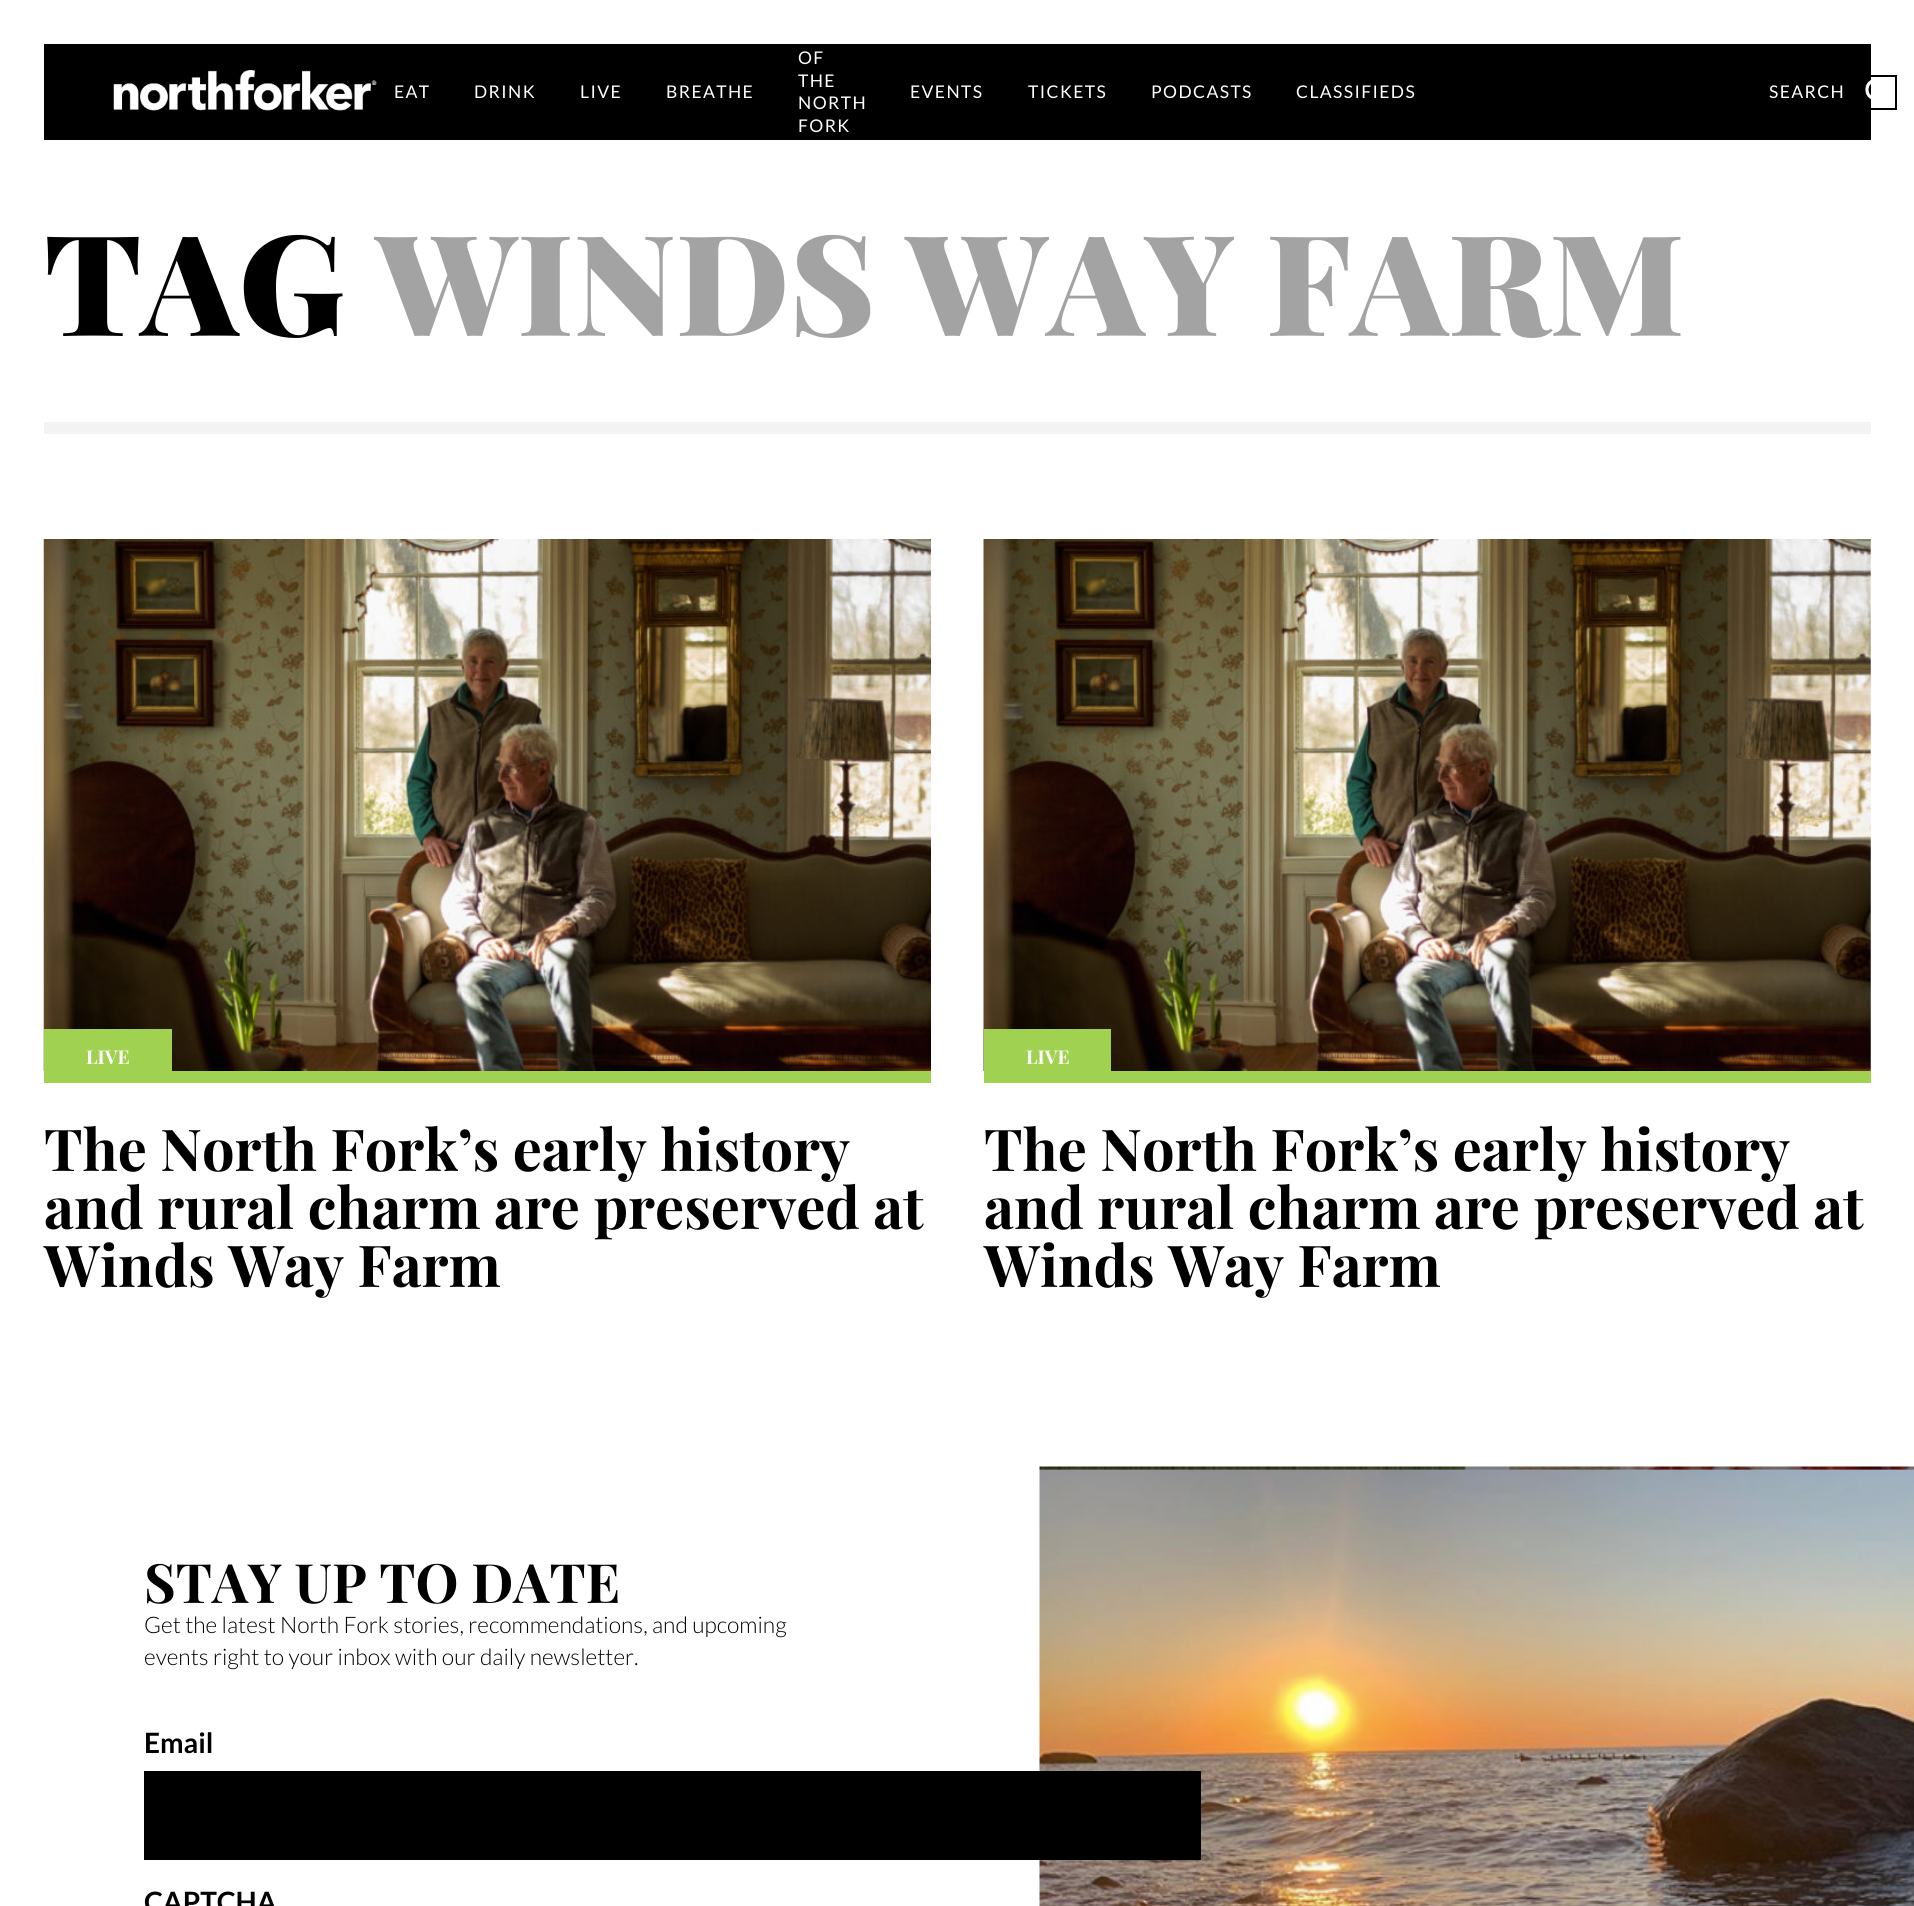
import math
import cairo

surface = cairo.ImageSurface(cairo.FORMAT_RGB24, 1914, 1906)
cr = cairo.Context(surface)
options = cairo.FontOptions()
options.set_hint_metrics(cairo.HINT_METRICS_OFF)
options.set_hint_style(cairo.HINT_STYLE_NONE)
cr.set_font_options(options)
cr.set_miter_limit(4)


def rgb(code):
    cr.set_source_rgb(*(v / 255 for v in bytes.fromhex(code[-6:])))


def tracked(x, y, s, letter, word):
    cr.move_to(x, y)
    for ch in s:
        cr.show_text(ch)
        cr.rel_move_to(letter + word * (ch == ' '), 0)


def image(path, x, y, w, h):
    cr.save()
    cr.set_source_surface(cairo.ImageSurface.create_from_png(path), x, y)
    cr.rectangle(x, y, w, h)
    cr.fill()
    cr.restore()


rgb("#ffffff")
cr.paint()
rgb("#000000")
cr.rectangle(44, 44, 1827, 96)
cr.fill()
image("img/1.png", 113, 70, 264, 41)
image("img/2.png", 1865, 79, 6, 21)
cr.rectangle(1863, 76, 33, 33)
cr.stroke()
rgb("#f3f3f3")
cr.rectangle(44, 422, 1827, 12)
cr.fill()
rgb("#a0d150")
cr.rectangle(172, 1071, 759, 12)
cr.fill()
image("img/3.png", 43, 539, 888, 532)
cr.rectangle(44, 1029, 128, 54)
cr.fill()
cr.rectangle(1111, 1071, 760, 12)
cr.fill()
image("img/4.png", 983, 539, 888, 532)
cr.rectangle(984, 1029, 127, 54)
cr.fill()
image("img/5.png", 1039, 1466, 875, 440)
rgb("#000000")
cr.rectangle(144, 1771, 1057, 89)
cr.fill()
cr.select_font_face("Lato")
cr.set_font_size(17.5)
rgb("#ffffff")
for x, y, s in [
    (394, 98, "EAT"),
    (474, 98, "DRINK"),
    (580, 98, "LIVE"),
    (666, 98, "BREATHE"),
    (798, 64, "OF"),
    (798, 87, "THE"),
    (798, 109, "NORTH"),
    (798, 132, "FORK"),
    (910, 98, "EVENTS"),
    (1028, 98, "TICKETS"),
    (1151, 98, "PODCASTS"),
    (1296, 98, "CLASSIFIEDS"),
    (1769, 98, "SEARCH"),
]:
    tracked(x, y, s, 1.4, 0)
cr.select_font_face("Playfair Display Black")
cr.set_font_size(140)
rgb("#000000")
cr.move_to(44, 336)
cr.show_text("TAG")
rgb("#a3a3a3")
cr.move_to(376, 336)
cr.show_text("WINDS WAY FARM")
cr.select_font_face("Playfair Display", cairo.FONT_SLANT_NORMAL, cairo.FONT_WEIGHT_BOLD)
cr.set_font_size(19)
rgb("#ffffff")
cr.move_to(86, 1064)
cr.show_text("LIVE")
cr.set_font_size(57.75)
rgb("#000000")
for x, y, s in [
    (44, 1171, "The North Fork’s early history"),
    (44, 1229, "and rural charm are preserved at"),
    (44, 1287, "Winds Way Farm"),
]:
    cr.move_to(x, y)
    cr.show_text(s)
cr.set_font_size(19)
rgb("#ffffff")
cr.move_to(1026, 1064)
cr.show_text("LIVE")
cr.set_font_size(57.75)
rgb("#000000")
for x, y, s in [
    (984, 1171, "The North Fork’s early history"),
    (984, 1229, "and rural charm are preserved at"),
    (984, 1287, "Winds Way Farm"),
]:
    cr.move_to(x, y)
    cr.show_text(s)
cr.set_font_size(54.25)
cr.move_to(144, 1603)
cr.show_text("STAY UP TO DATE")
cr.select_font_face("Lato Light")
cr.set_font_size(22.75)
cr.move_to(144, 1633)
cr.show_text("Get the latest North Fork stories, recommendations, and upcoming")
cr.move_to(144, 1665)
cr.show_text("events right to your inbox with our daily newsletter.")
cr.select_font_face("Lato", cairo.FONT_SLANT_NORMAL, cairo.FONT_WEIGHT_BOLD)
cr.set_font_size(28)
cr.move_to(144, 1753)
cr.show_text("Email")
cr.move_to(144, 1912)
cr.show_text("CAPTCHA")
surface.write_to_png("page.png")
